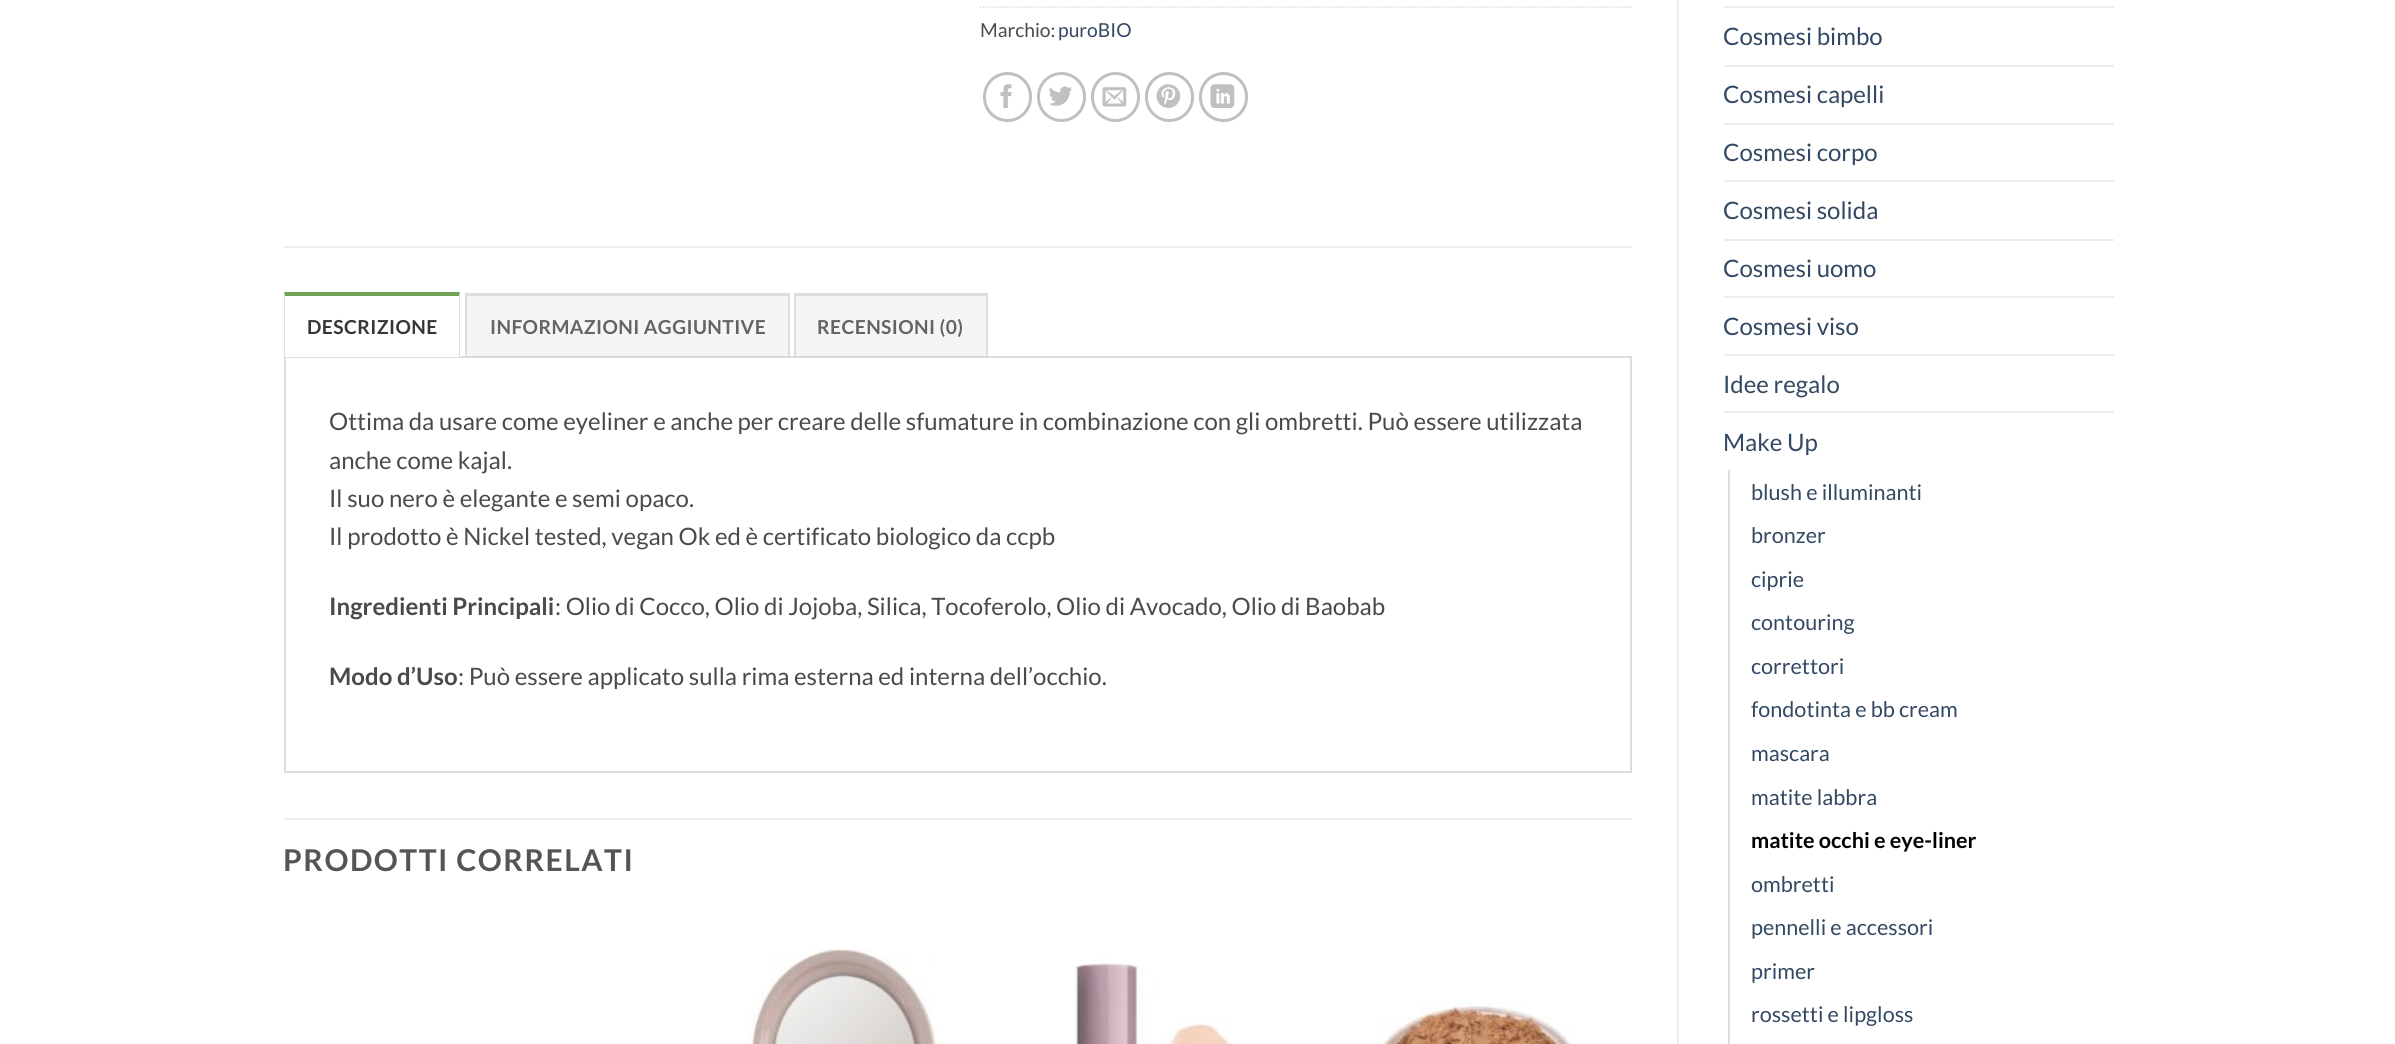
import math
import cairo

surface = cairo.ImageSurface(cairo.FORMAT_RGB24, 2395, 1044)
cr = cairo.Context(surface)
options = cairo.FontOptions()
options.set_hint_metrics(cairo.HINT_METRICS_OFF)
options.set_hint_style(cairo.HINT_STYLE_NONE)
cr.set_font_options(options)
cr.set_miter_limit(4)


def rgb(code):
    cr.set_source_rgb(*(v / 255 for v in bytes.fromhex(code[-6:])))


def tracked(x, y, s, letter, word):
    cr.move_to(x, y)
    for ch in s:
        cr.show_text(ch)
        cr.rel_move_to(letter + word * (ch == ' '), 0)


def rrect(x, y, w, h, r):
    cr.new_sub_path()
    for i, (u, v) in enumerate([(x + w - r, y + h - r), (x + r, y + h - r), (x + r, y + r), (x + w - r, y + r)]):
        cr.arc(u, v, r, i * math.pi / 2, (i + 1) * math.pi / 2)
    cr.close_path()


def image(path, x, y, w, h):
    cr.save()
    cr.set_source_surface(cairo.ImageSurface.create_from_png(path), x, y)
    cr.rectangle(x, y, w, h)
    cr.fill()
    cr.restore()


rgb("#ffffff")
cr.paint()
rgb("#ececec")
cr.rectangle(1677, 0, 2, 1044)
cr.fill()
cr.new_path()
cr.move_to(979.5, 7)
cr.line_to(1632, 7)
rgb("#dddddd")
cr.set_line_width(1.5)
cr.set_dash([1.5, 1.5])
cr.stroke()
rrect(984.5, 73.5, 46, 47, 23)
rgb("#c0c0c0")
cr.set_line_width(3)
cr.set_dash([])
cr.stroke()
image("img/1.png", 1000, 84, 12, 24)
rrect(1038.5, 73.5, 46, 47, 23)
cr.stroke()
image("img/2.png", 1049, 86, 23, 20)
rrect(1092.5, 73.5, 46, 47, 23)
cr.stroke()
image("img/3.png", 1102, 87, 25, 20)
rrect(1146.5, 73.5, 46, 47, 23)
cr.stroke()
image("img/4.png", 1156, 84, 25, 24)
rrect(1200.5, 73.5, 46, 47, 23)
cr.stroke()
image("img/5.png", 1210, 84, 25, 24)
rgb("#ececec")
cr.rectangle(284, 246, 1348, 2)
cr.fill()
cr.rectangle(285, 357, 1346, 415)
rgb("#dddddd")
cr.set_line_width(2)
cr.stroke()
rgb("#ffffff")
cr.rectangle(284, 356, 177, 1)
cr.fill()
rgb("#70a357")
cr.new_path()
cr.move_to(284, 292)
cr.line_to(460, 292)
cr.line_to(459, 296)
cr.line_to(285, 296)
cr.close_path()
cr.fill()
rgb("#dddddd")
cr.new_path()
cr.move_to(460, 292)
cr.line_to(460, 357)
cr.line_to(459, 357)
cr.line_to(459, 296)
cr.close_path()
cr.fill()
cr.new_path()
cr.move_to(284, 357)
cr.line_to(284, 292)
cr.line_to(285, 296)
cr.line_to(285, 357)
cr.close_path()
cr.fill()
cr.set_source_rgba(0, 0, 0, 0.04)
cr.rectangle(467, 296, 321, 61)
cr.fill()
rgb("#dddddd")
cr.rectangle(465, 293, 324, 3)
cr.rectangle(788, 293, 2, 64)
cr.rectangle(465, 293, 2, 64)
cr.fill()
cr.set_source_rgba(0, 0, 0, 0.04)
cr.rectangle(796, 296, 190, 61)
cr.fill()
rgb("#dddddd")
cr.rectangle(794, 293, 193, 3)
cr.rectangle(986, 293, 2, 64)
cr.rectangle(794, 293, 2, 64)
cr.fill()
rgb("#ececec")
cr.rectangle(284, 818, 1348, 2)
cr.fill()
image("img/6.png", 750, 948, 188, 96)
image("img/7.png", 1075, 959, 157, 85)
image("img/8.png", 1381, 1001, 190, 43)
for x, y, w, h, color in [
    (1724, 6, 390, 2, "#ececec"),
    (1724, 65, 390, 2, "#ececec"),
    (1724, 123, 390, 2, "#ececec"),
    (1724, 180, 390, 2, "#ececec"),
    (1724, 239, 390, 2, "#ececec"),
    (1724, 296, 390, 2, "#ececec"),
    (1724, 354, 390, 2, "#ececec"),
    (1724, 411, 390, 2, "#ececec"),
    (1728, 470, 2, 574, "#dddddd"),
]:
    rgb(color)
    cr.rectangle(x, y, w, h)
    cr.fill()
cr.select_font_face("Lato")
cr.set_font_size(19.25)
rgb("#4a4a4a")
cr.move_to(980, 37)
cr.show_text("Marchio:")
rgb("#334862")
cr.move_to(1058, 37)
cr.show_text("puroBIO")
cr.select_font_face("Lato", cairo.FONT_SLANT_NORMAL, cairo.FONT_WEIGHT_BOLD)
rgb("#363636")
tracked(307, 334, "DESCRIZIONE", 0.4, 0)
rgb("#646464")
tracked(490, 334, "INFORMAZIONI AGGIUNTIVE", 0.4, 0)
tracked(817, 334, "RECENSIONI (0)", 0.4, 0)
cr.select_font_face("Lato")
cr.set_font_size(24)
rgb("#4a4a4a")
for x, y, s in [
    (329, 430, "Ottima da usare come eyeliner e anche per creare delle sfumature in combinazione con gli ombretti. Può essere utilizzata"),
    (329, 469, "anche come kajal."),
    (329, 507, "Il suo nero è elegante e semi opaco."),
    (329, 545, "Il prodotto è Nickel tested, vegan Ok ed è certificato biologico da ccpb"),
]:
    cr.move_to(x, y)
    cr.show_text(s)
cr.select_font_face("Lato", cairo.FONT_SLANT_NORMAL, cairo.FONT_WEIGHT_BOLD)
cr.move_to(329, 615)
cr.show_text("Ingredienti Principali")
cr.select_font_face("Lato")
cr.move_to(555, 615)
cr.show_text(": Olio di Cocco, Olio di Jojoba, Silica, Tocoferolo, Olio di Avocado, Olio di Baobab")
cr.select_font_face("Lato", cairo.FONT_SLANT_NORMAL, cairo.FONT_WEIGHT_BOLD)
cr.move_to(329, 685)
cr.show_text("Modo d’Uso")
cr.select_font_face("Lato")
cr.move_to(458, 685)
cr.show_text(": Può essere applicato sulla rima esterna ed interna dell’occhio.")
cr.select_font_face("Lato", cairo.FONT_SLANT_NORMAL, cairo.FONT_WEIGHT_BOLD)
cr.set_font_size(30)
rgb("#555555")
tracked(283, 871, "PRODOTTI CORRELATI", 1.5, 0)
cr.select_font_face("Lato")
cr.set_font_size(24)
rgb("#334862")
for x, y, s in [
    (1723, 45, "Cosmesi bimbo"),
    (1723, 103, "Cosmesi capelli"),
    (1723, 161, "Cosmesi corpo"),
    (1723, 219, "Cosmesi solida"),
    (1723, 277, "Cosmesi uomo"),
    (1723, 335, "Cosmesi viso"),
    (1723, 393, "Idee regalo"),
    (1723, 451, "Make Up"),
]:
    cr.move_to(x, y)
    cr.show_text(s)
cr.set_font_size(21.6)
for x, y, s in [
    (1751, 500, "blush e illuminanti"),
    (1751, 543, "bronzer"),
    (1751, 587, "ciprie"),
    (1751, 630, "contouring"),
    (1751, 674, "correttori"),
    (1751, 717, "fondotinta e bb cream"),
    (1751, 761, "mascara"),
    (1751, 805, "matite labbra"),
]:
    cr.move_to(x, y)
    cr.show_text(s)
cr.select_font_face("Lato", cairo.FONT_SLANT_NORMAL, cairo.FONT_WEIGHT_BOLD)
rgb("#000000")
cr.move_to(1751, 848)
cr.show_text("matite occhi e eye-liner")
cr.select_font_face("Lato")
rgb("#334862")
for x, y, s in [
    (1751, 892, "ombretti"),
    (1751, 935, "pennelli e accessori"),
    (1751, 979, "primer"),
    (1751, 1022, "rossetti e lipgloss"),
]:
    cr.move_to(x, y)
    cr.show_text(s)
surface.write_to_png("page.png")
